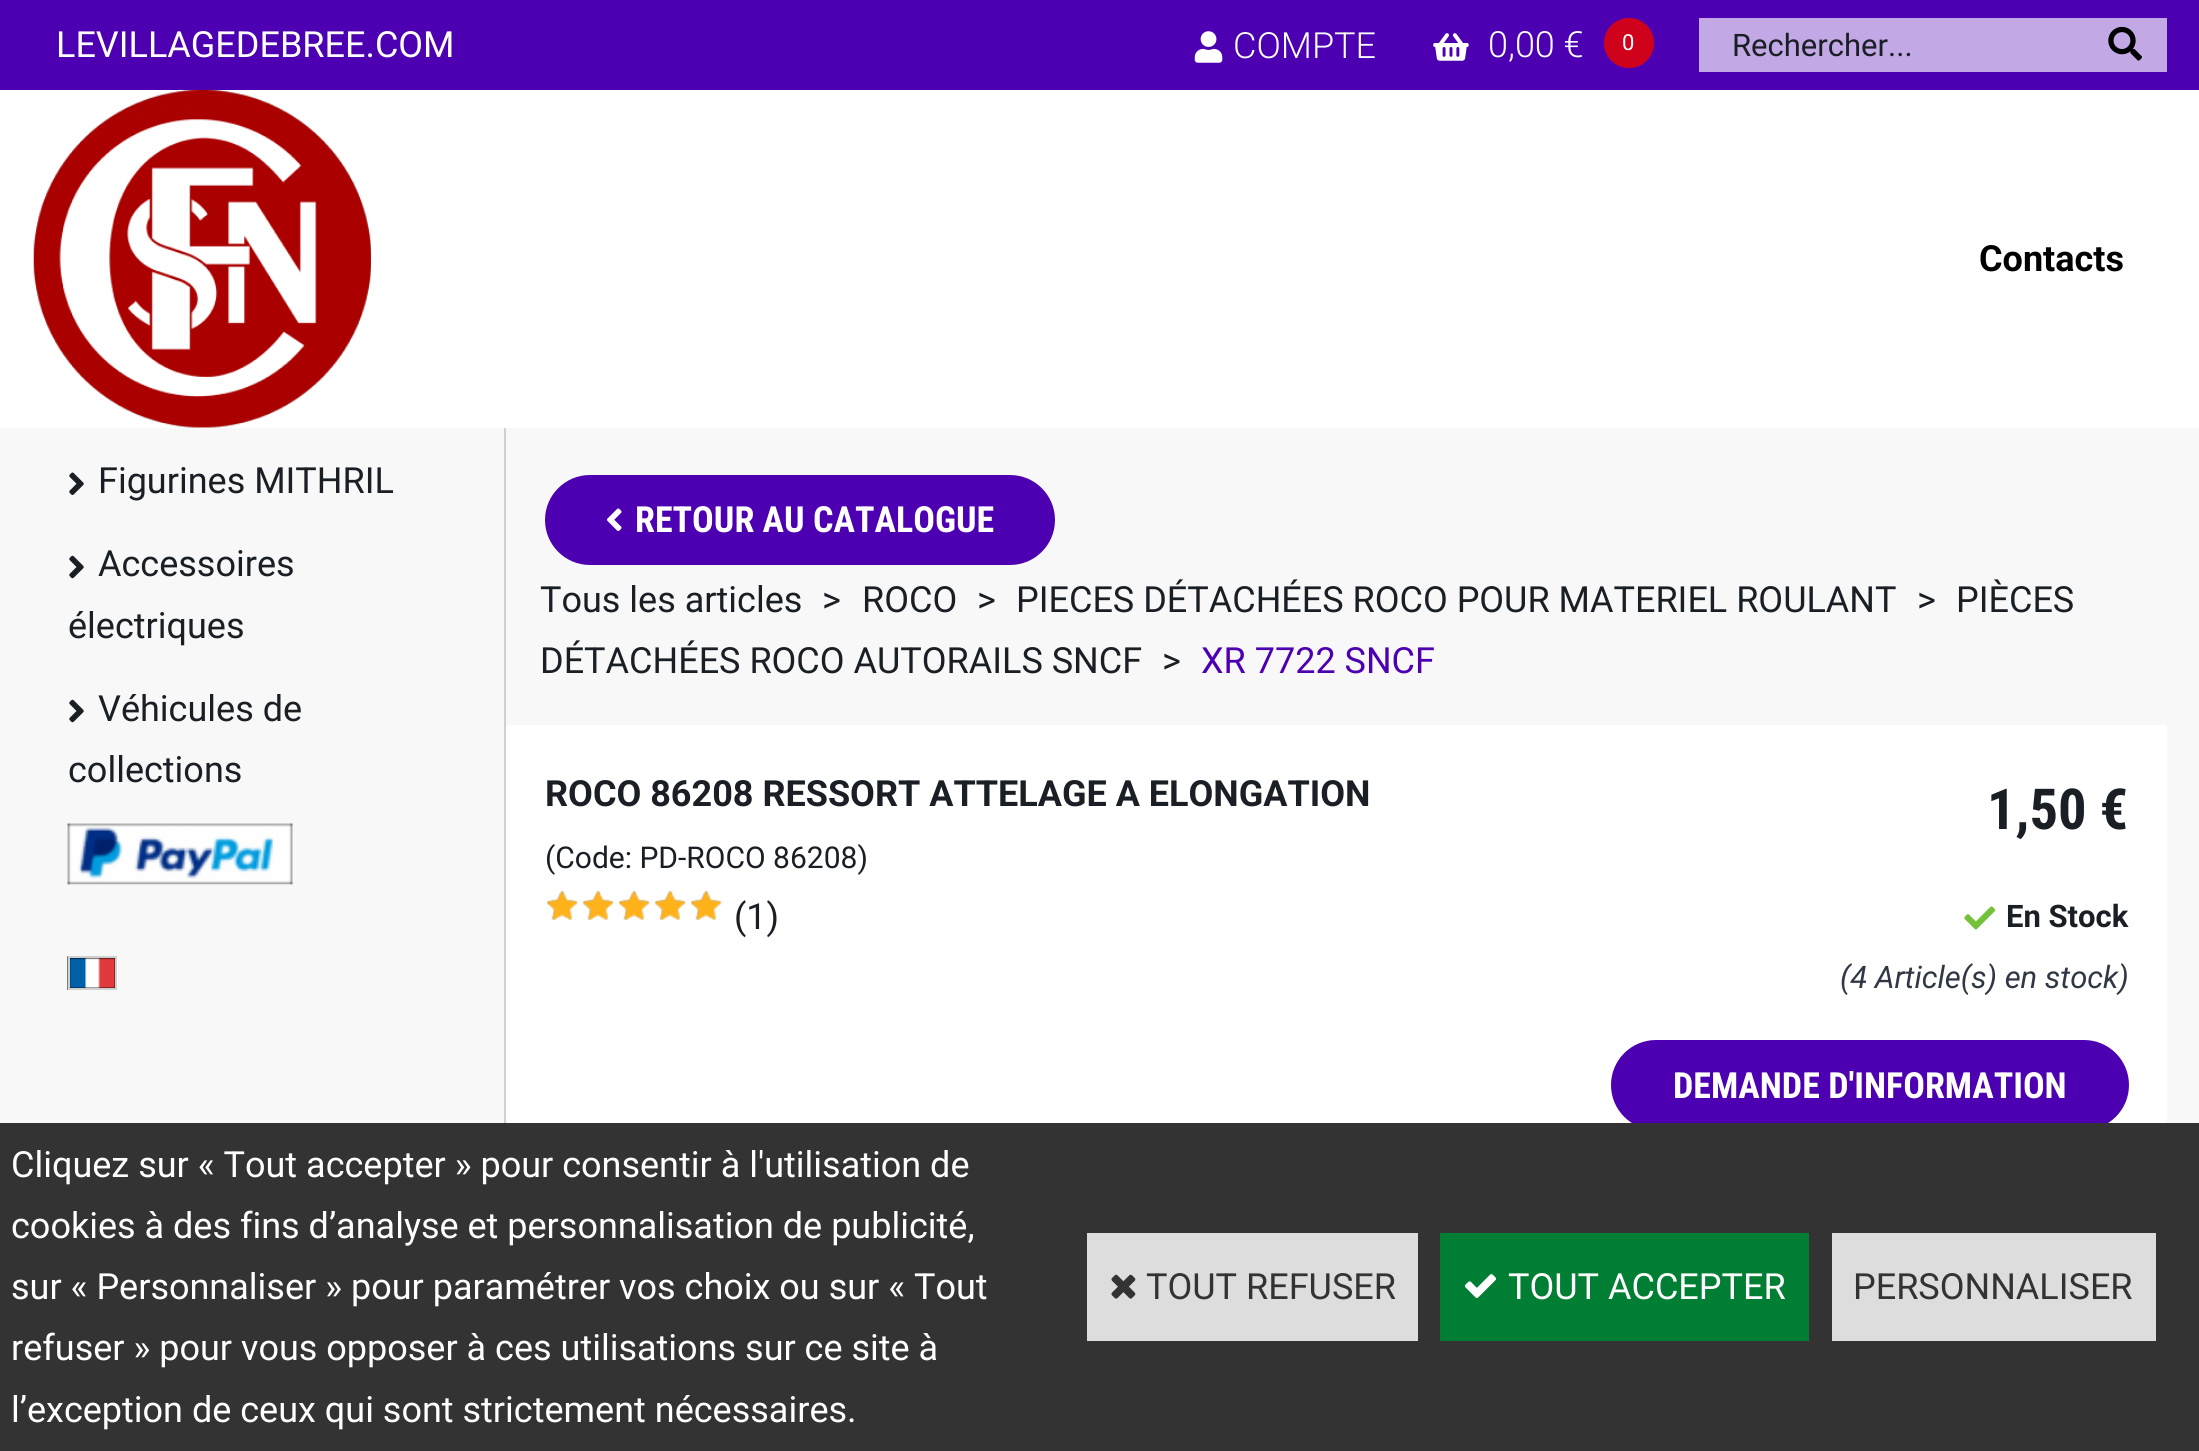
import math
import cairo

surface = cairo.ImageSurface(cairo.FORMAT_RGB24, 2199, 1451)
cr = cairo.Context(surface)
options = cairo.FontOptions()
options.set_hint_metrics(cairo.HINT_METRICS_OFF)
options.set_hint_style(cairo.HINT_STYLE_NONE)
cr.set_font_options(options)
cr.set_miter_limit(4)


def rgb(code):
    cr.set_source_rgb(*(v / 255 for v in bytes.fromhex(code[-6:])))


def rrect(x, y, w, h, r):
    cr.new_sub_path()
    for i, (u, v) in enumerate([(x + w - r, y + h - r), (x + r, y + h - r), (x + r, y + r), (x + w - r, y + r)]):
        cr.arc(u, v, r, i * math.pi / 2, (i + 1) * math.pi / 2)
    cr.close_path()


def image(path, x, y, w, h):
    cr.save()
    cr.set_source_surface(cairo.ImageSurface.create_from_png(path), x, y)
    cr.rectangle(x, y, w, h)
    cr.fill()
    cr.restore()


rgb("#f8f8f8")
cr.paint()
rgb("#ffffff")
cr.rectangle(0, 90, 2199, 338)
cr.fill()
rgb("#4c00b1")
cr.rectangle(0, 0, 2199, 90)
cr.fill()
image("img/1.png", 1194, 31, 29, 32)
image("img/2.png", 1433, 33, 36, 28)
rgb("#d0021b")
cr.arc(1629, 43, 25, 0, 2 * math.pi)
cr.fill()
rgb("#c2a8e4")
cr.rectangle(1699, 18, 468, 54)
cr.fill()
image("img/3.png", 2108, 26, 34, 35)
image("img/4.png", 33, 90, 338, 338)
rgb("#d0d0d0")
cr.rectangle(504, 428, 2, 695)
cr.fill()
image("img/5.png", 69, 472, 15, 23)
image("img/6.png", 69, 555, 15, 24)
image("img/6.png", 69, 699, 15, 24)
image("img/7.png", 67, 823, 226, 62)
image("img/8.png", 67, 956, 48, 34)
cr.rectangle(69, 957, 47, 32)
cr.stroke()
rgb("#4c00b1")
rrect(546, 476, 508, 88, 44)
cr.fill_preserve()
cr.stroke()
image("img/9.png", 607, 508, 15, 23)
rgb("#ffffff")
cr.rectangle(506, 725, 1661, 398)
cr.fill()
image("img/10.png", 547, 890, 175, 30)
image("img/11.png", 547, 890, 175, 30)
image("img/12.png", 1964, 906, 32, 24)
rgb("#4c00b1")
rrect(1612, 1041, 516, 88, 44)
cr.fill_preserve()
cr.stroke()
rgb("#333333")
cr.rectangle(0, 1123, 2199, 328)
cr.fill()
rgb("#dddddd")
cr.rectangle(1087, 1233, 331, 108)
cr.fill()
image("img/13.png", 1111, 1274, 25, 25)
rgb("#007e33")
cr.rectangle(1440, 1233, 369, 108)
cr.fill()
image("img/14.png", 1465, 1274, 32, 24)
rgb("#dddddd")
cr.rectangle(1832, 1233, 324, 108)
cr.fill()
cr.select_font_face("Roboto")
cr.set_font_size(36)
rgb("#ffffff")
cr.move_to(56, 57)
cr.show_text("LEVILLAGEDEBREE.COM")
cr.select_font_face("Roboto Light")
cr.move_to(1233, 58)
cr.show_text("COMPTE")
cr.move_to(1488, 57)
cr.show_text("0,00 €")
cr.select_font_face("Roboto")
cr.set_font_size(22)
cr.move_to(1622, 50)
cr.show_text("0")
cr.set_font_size(31)
rgb("#1a1f26")
cr.move_to(1732, 56)
cr.show_text("Rechercher...")
cr.select_font_face("Roboto", cairo.FONT_SLANT_NORMAL, cairo.FONT_WEIGHT_BOLD)
cr.set_font_size(36)
rgb("#000000")
cr.move_to(1979, 271)
cr.show_text("Contacts")
cr.select_font_face("Roboto")
rgb("#1a1f26")
for x, y, s in [
    (98, 493, "Figurines MITHRIL"),
    (98, 576, "Accessoires"),
    (68, 638, "électriques"),
    (98, 721, "Véhicules de"),
    (68, 782, "collections"),
]:
    cr.move_to(x, y)
    cr.show_text(s)
cr.select_font_face("Roboto Condensed", cairo.FONT_SLANT_NORMAL, cairo.FONT_WEIGHT_BOLD)
rgb("#ffffff")
cr.move_to(635, 532)
cr.show_text("RETOUR AU CATALOGUE")
cr.select_font_face("Roboto")
rgb("#1a1f26")
for x, y, s in [
    (540, 612, "Tous les articles"),
    (822, 612, ">"),
    (862, 612, "ROCO"),
    (977, 612, ">"),
    (1016, 612, "PIECES DÉTACHÉES ROCO POUR MATERIEL ROULANT"),
    (1917, 612, ">"),
    (1956, 612, "PIÈCES"),
    (540, 673, "DÉTACHÉES ROCO AUTORAILS SNCF"),
    (1162, 673, ">"),
]:
    cr.move_to(x, y)
    cr.show_text(s)
rgb("#4c00b1")
cr.move_to(1201, 673)
cr.show_text("XR 7722 SNCF")
cr.select_font_face("Roboto", cairo.FONT_SLANT_NORMAL, cairo.FONT_WEIGHT_BOLD)
rgb("#1a1f26")
cr.move_to(545, 806)
cr.show_text("ROCO 86208 RESSORT ATTELAGE A ELONGATION")
cr.select_font_face("Roboto")
cr.set_font_size(30)
cr.move_to(545, 868)
cr.show_text("(Code: PD-ROCO 86208)")
cr.set_font_size(36)
cr.move_to(734, 929)
cr.show_text("(1)")
cr.select_font_face("Roboto Condensed", cairo.FONT_SLANT_NORMAL, cairo.FONT_WEIGHT_BOLD)
cr.set_font_size(56.5)
cr.move_to(1987, 829)
cr.show_text("1,50 €")
cr.select_font_face("Roboto", cairo.FONT_SLANT_NORMAL, cairo.FONT_WEIGHT_BOLD)
cr.set_font_size(31)
cr.move_to(2006, 927)
cr.show_text("En Stock")
cr.select_font_face("Roboto", cairo.FONT_SLANT_ITALIC)
rgb("#2f3844")
cr.move_to(1840, 988)
cr.show_text("(4 Article(s) en stock)")
cr.select_font_face("Roboto Condensed", cairo.FONT_SLANT_NORMAL, cairo.FONT_WEIGHT_BOLD)
cr.set_font_size(36)
rgb("#ffffff")
cr.move_to(1673, 1098)
cr.show_text("DEMANDE D'INFORMATION")
cr.select_font_face("Roboto")
for x, y, s in [
    (11, 1177, "Cliquez sur « Tout accepter » pour consentir à l'utilisation de"),
    (11, 1238, "cookies à des fins d’analyse et personnalisation de publicité,"),
    (11, 1299, "sur « Personnaliser » pour paramétrer vos choix ou sur « Tout"),
    (11, 1360, "refuser » pour vous opposer à ces utilisations sur ce site à"),
    (11, 1422, "l’exception de ceux qui sont strictement nécessaires."),
]:
    cr.move_to(x, y)
    cr.show_text(s)
rgb("#333333")
cr.move_to(1146, 1299)
cr.show_text("TOUT REFUSER")
rgb("#ffffff")
cr.move_to(1508, 1299)
cr.show_text("TOUT ACCEPTER")
rgb("#333333")
cr.move_to(1853, 1299)
cr.show_text("PERSONNALISER")
surface.write_to_png("page.png")
